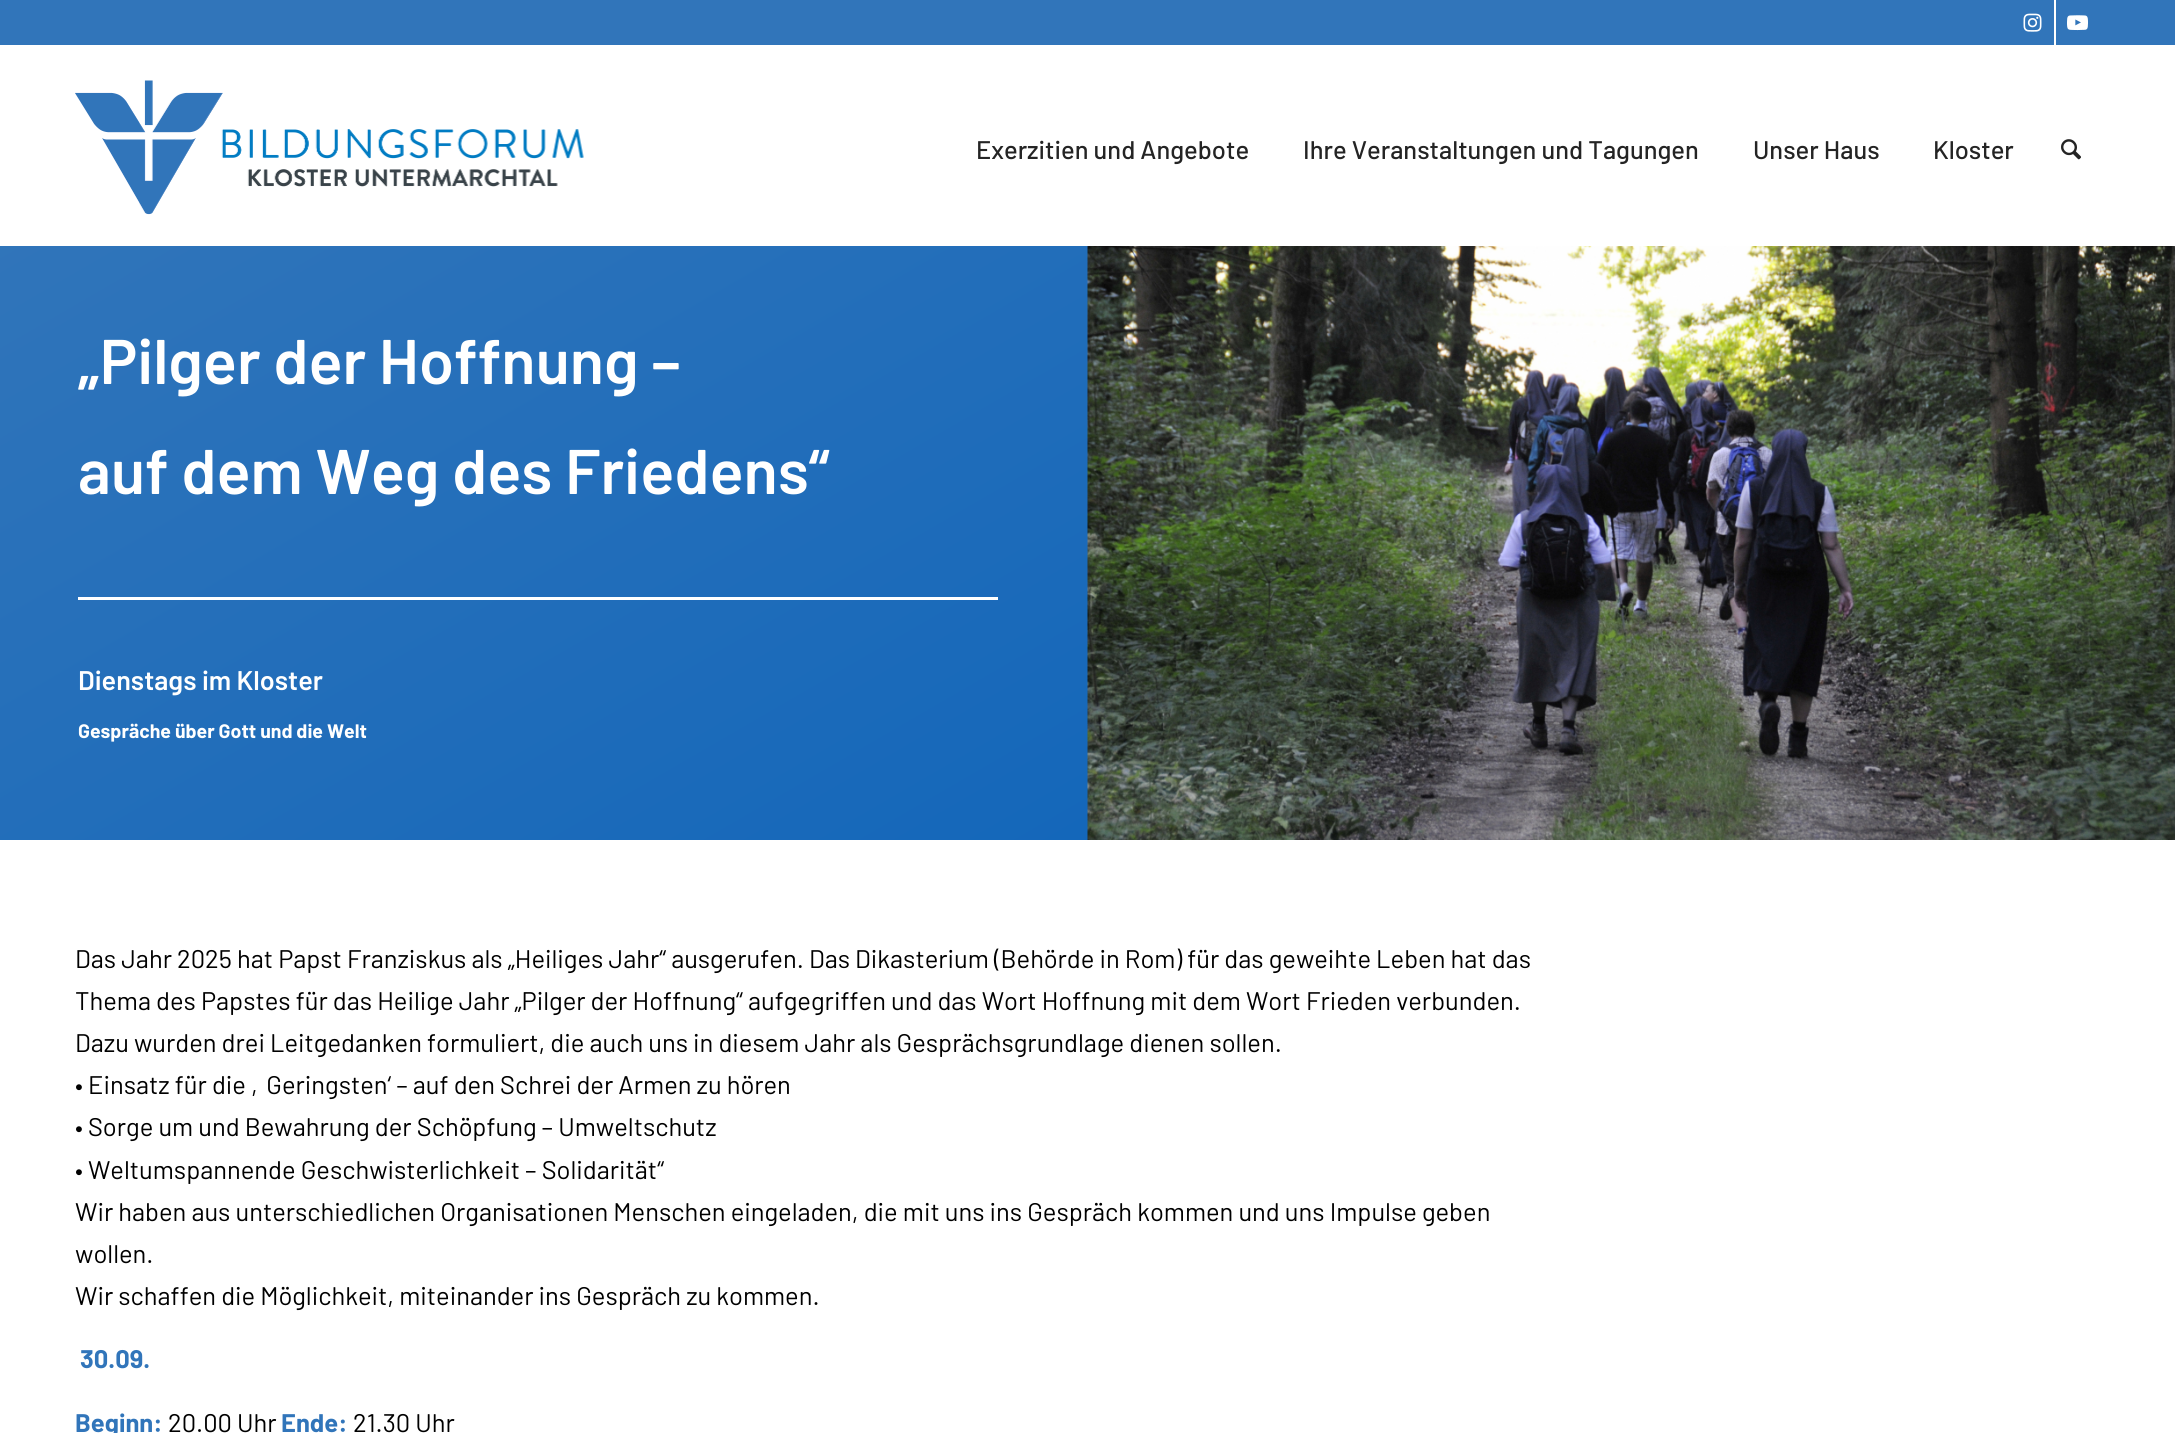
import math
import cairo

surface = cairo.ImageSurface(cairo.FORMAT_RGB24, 2175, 1433)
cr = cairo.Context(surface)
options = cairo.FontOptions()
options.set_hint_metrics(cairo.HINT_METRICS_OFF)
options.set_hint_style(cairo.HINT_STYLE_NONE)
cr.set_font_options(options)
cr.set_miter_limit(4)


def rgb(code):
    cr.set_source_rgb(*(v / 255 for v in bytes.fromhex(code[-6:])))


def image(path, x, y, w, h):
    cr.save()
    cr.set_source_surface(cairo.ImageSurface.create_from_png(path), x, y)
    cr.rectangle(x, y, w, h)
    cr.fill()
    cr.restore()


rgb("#ffffff")
cr.paint()
rgb("#3175ba")
cr.rectangle(0, 0, 2175, 45)
cr.fill()
rgb("#ffffff")
cr.rectangle(2054, 0, 2, 45)
cr.fill()
image("img/1.png", 2023, 13, 19, 19)
image("img/2.png", 2067, 15, 21, 16)
image("img/3.png", 75, 80, 509, 135)
image("img/4.png", 2061, 139, 20, 21)
gradient = cairo.LinearGradient(270, 53, 817, 997)
gradient.add_color_stop_rgba(0, 0.192, 0.459, 0.729, 1)
gradient.add_color_stop_rgba(1, 0.078, 0.404, 0.729, 1)
cr.set_source(gradient)
cr.rectangle(0, 246, 1088, 594)
cr.fill()
rgb("#ffffff")
cr.rectangle(78, 597, 920, 3)
cr.fill()
image("img/5.png", 1087, 246, 1088, 594)
cr.select_font_face("Barlow Medium")
cr.set_font_size(25.5)
rgb("#242424")
for x, y, s in [
    (976, 159, "Exerzitien und Angebote"),
    (1303, 159, "Ihre Veranstaltungen und Tagungen"),
    (1753, 159, "Unser Haus"),
    (1933, 159, "Kloster"),
]:
    cr.move_to(x, y)
    cr.show_text(s)
cr.select_font_face("Barlow SemiBold")
cr.set_font_size(63)
rgb("#ffffff")
cr.move_to(78, 384)
cr.show_text("„Pilger der Hoffnung –")
cr.move_to(78, 494)
cr.show_text("auf dem Weg des Friedens“")
cr.set_font_size(27)
cr.move_to(78, 690)
cr.show_text("Dienstags im Kloster")
cr.select_font_face("Barlow", cairo.FONT_SLANT_NORMAL, cairo.FONT_WEIGHT_BOLD)
cr.set_font_size(19.5)
cr.move_to(78, 738)
cr.show_text("Gespräche über Gott und die Welt")
cr.select_font_face("Barlow")
cr.set_font_size(25.5)
rgb("#000000")
for x, y, s in [
    (75, 968, "Das Jahr 2025 hat Papst Franziskus als „Heiliges Jahr“ ausgerufen. Das Dikasterium (Behörde in Rom) für das geweihte Leben hat das"),
    (75, 1010, "Thema des Papstes für das Heilige Jahr „Pilger der Hoffnung“ aufgegriffen und das Wort Hoffnung mit dem Wort Frieden verbunden."),
    (75, 1052, "Dazu wurden drei Leitgedanken formuliert, die auch uns in diesem Jahr als Gesprächsgrundlage dienen sollen."),
    (75, 1094, "• Einsatz für die ‚Geringsten‘ – auf den Schrei der Armen zu hören"),
    (75, 1136, "• Sorge um und Bewahrung der Schöpfung – Umweltschutz"),
    (75, 1179, "• Weltumspannende Geschwisterlichkeit – Solidarität“"),
    (75, 1221, "Wir haben aus unterschiedlichen Organisationen Menschen eingeladen, die mit uns ins Gespräch kommen und uns Impulse geben"),
    (75, 1263, "wollen."),
    (75, 1305, "Wir schaffen die Möglichkeit, miteinander ins Gespräch zu kommen."),
]:
    cr.move_to(x, y)
    cr.show_text(s)
cr.select_font_face("Barlow", cairo.FONT_SLANT_NORMAL, cairo.FONT_WEIGHT_BOLD)
rgb("#3175ba")
cr.move_to(80, 1368)
cr.show_text("30.09.")
cr.move_to(75, 1432)
cr.show_text("Beginn:")
cr.select_font_face("Barlow")
rgb("#000000")
cr.move_to(168, 1432)
cr.show_text("20.00 Uhr")
cr.select_font_face("Barlow", cairo.FONT_SLANT_NORMAL, cairo.FONT_WEIGHT_BOLD)
rgb("#3175ba")
cr.move_to(281, 1432)
cr.show_text("Ende:")
cr.select_font_face("Barlow")
rgb("#000000")
cr.move_to(353, 1432)
cr.show_text("21.30 Uhr")
surface.write_to_png("page.png")
